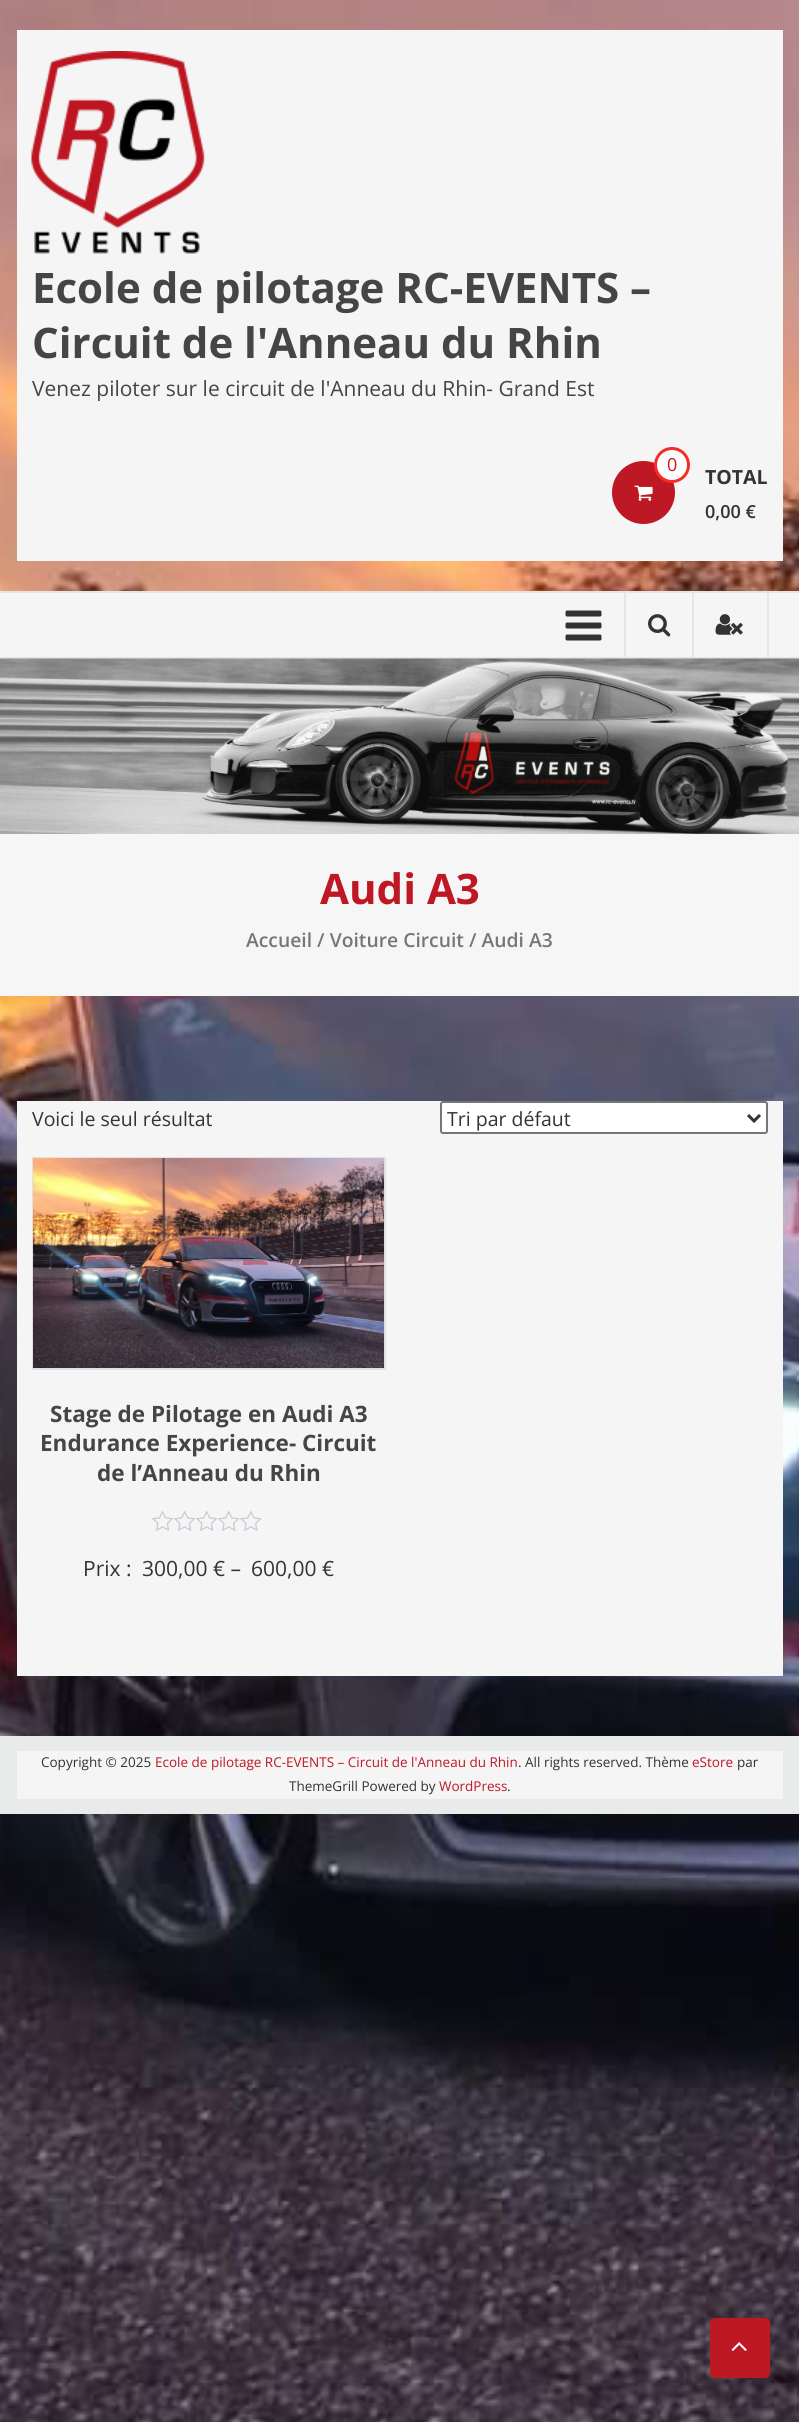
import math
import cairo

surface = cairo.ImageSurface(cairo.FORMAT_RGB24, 799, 2422)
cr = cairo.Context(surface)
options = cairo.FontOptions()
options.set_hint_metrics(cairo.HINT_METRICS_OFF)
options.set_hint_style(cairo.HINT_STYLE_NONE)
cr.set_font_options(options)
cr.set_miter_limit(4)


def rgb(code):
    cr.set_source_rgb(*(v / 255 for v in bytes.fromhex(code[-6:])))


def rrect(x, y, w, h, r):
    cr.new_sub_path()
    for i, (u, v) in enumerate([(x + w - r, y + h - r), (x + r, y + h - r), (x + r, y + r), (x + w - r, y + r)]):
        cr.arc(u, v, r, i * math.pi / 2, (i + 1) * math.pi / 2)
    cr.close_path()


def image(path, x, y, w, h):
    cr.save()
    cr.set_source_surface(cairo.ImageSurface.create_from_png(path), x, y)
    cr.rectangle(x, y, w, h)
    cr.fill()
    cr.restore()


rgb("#ffffff")
cr.paint()
image("img/1.png", 0, 0, 799, 2422)
rgb("#f5f5f5")
cr.rectangle(17, 30, 766, 531)
cr.fill()
image("img/2.png", 31, 51, 174, 203)
rgb("#be1824")
cr.arc(643.5, 492.5, 31.5, 0, 2 * math.pi)
cr.fill()
rgb("#ffffff")
cr.arc(672, 465, 16.5, 0, 2 * math.pi)
cr.fill_preserve()
rgb("#f72c25")
cr.set_line_width(3)
cr.stroke()
image("img/3.png", 634, 485, 19, 16)
for x, y, w, h, color in [
    (0, 593, 799, 64, "#f5f5f5"),
    (0, 591, 799, 2, "#e5e5e5"),
    (0, 657, 799, 2, "#e5e5e5"),
]:
    rgb(color)
    cr.rectangle(x, y, w, h)
    cr.fill()
image("img/4.png", 565, 610, 37, 31)
cr.rectangle(624, 593, 2, 64)
cr.fill()
image("img/5.png", 648, 614, 23, 23)
cr.rectangle(767, 593, 2, 64)
cr.fill()
cr.rectangle(692, 593, 2, 64)
cr.fill()
image("img/6.png", 715, 614, 28, 21)
image("img/7.png", 0, 658, 799, 176)
rgb("#f6f6f6")
cr.rectangle(0, 834, 799, 162)
cr.fill()
rgb("#f5f5f5")
cr.rectangle(17, 1101, 766, 575)
cr.fill()
rgb("#ffffff")
rrect(441, 1102, 326, 31, 2)
cr.fill_preserve()
rgb("#767676")
cr.set_line_width(2)
cr.stroke()
cr.new_path()
cr.move_to(748, 1115)
cr.line_to(754, 1121)
cr.line_to(760, 1115)
rgb("#333333")
cr.set_line_width(3)
cr.stroke()
cr.rectangle(33, 1158, 352, 211)
rgb("#e1e1e1")
cr.set_line_width(2)
cr.stroke()
image("img/8.png", 33, 1158, 351, 210)
image("img/9.png", 152, 1511, 110, 20)
rgb("#e9ebeb")
cr.rectangle(0, 1736, 799, 78)
cr.fill()
rgb("#f5f5f5")
cr.rectangle(17, 1751, 766, 48)
cr.fill()
rgb("#be1824")
rrect(710, 2318, 60, 60, 5)
cr.fill()
image("img/10.png", 731, 2342, 16, 9)
cr.select_font_face("Open Sans", cairo.FONT_SLANT_NORMAL, cairo.FONT_WEIGHT_BOLD)
cr.set_font_size(42)
rgb("#454545")
cr.move_to(32, 303)
cr.show_text("Ecole de pilotage RC-EVENTS –")
cr.move_to(32, 358)
cr.show_text("Circuit de l'Anneau du Rhin")
cr.select_font_face("Open Sans")
cr.set_font_size(21)
cr.move_to(32, 396)
cr.show_text("Venez piloter sur le circuit de l'Anneau du Rhin- Grand Est")
cr.set_font_size(18)
rgb("#be1824")
cr.move_to(667, 471)
cr.show_text("0")
cr.select_font_face("Open Sans", cairo.FONT_SLANT_NORMAL, cairo.FONT_WEIGHT_BOLD)
cr.set_font_size(19.5)
rgb("#333333")
cr.move_to(705, 484)
cr.show_text("TOTAL")
cr.select_font_face("Open Sans SemiBold")
cr.set_font_size(18)
cr.move_to(705, 518)
cr.show_text("0,00 €")
cr.select_font_face("Open Sans", cairo.FONT_SLANT_NORMAL, cairo.FONT_WEIGHT_BOLD)
cr.set_font_size(42)
rgb("#be1824")
cr.move_to(320, 904)
cr.show_text("Audi A3")
cr.select_font_face("Open Sans SemiBold")
cr.set_font_size(19.3)
rgb("#767676")
cr.move_to(246, 947)
cr.show_text("Accueil / Voiture Circuit / Audi A3")
cr.select_font_face("Open Sans")
cr.set_font_size(19.5)
rgb("#333333")
cr.move_to(32, 1126)
cr.show_text("Voici le seul résultat")
cr.move_to(447, 1126)
cr.show_text("Tri par défaut")
cr.select_font_face("Open Sans", cairo.FONT_SLANT_NORMAL, cairo.FONT_WEIGHT_BOLD)
cr.set_font_size(22.5)
rgb("#454545")
for x, y, s in [
    (50, 1422, "Stage de Pilotage en Audi A3"),
    (40, 1451, "Endurance Experience- Circuit"),
    (97, 1481, "de l’Anneau du Rhin"),
]:
    cr.move_to(x, y)
    cr.show_text(s)
cr.select_font_face("Open Sans")
cr.set_font_size(21)
rgb("#333333")
for x, y, s in [
    (83, 1576, "Prix :"),
    (142, 1576, "300,00 € –"),
    (251, 1576, "600,00 €"),
]:
    cr.move_to(x, y)
    cr.show_text(s)
cr.set_font_size(13.5)
cr.move_to(41, 1767)
cr.show_text("Copyright © 2025")
rgb("#be1824")
cr.move_to(155, 1767)
cr.show_text("Ecole de pilotage RC-EVENTS – Circuit de l'Anneau du Rhin")
rgb("#333333")
cr.move_to(518, 1767)
cr.show_text(". All rights reserved. Thème")
rgb("#be1824")
cr.move_to(692, 1767)
cr.show_text("eStore")
rgb("#333333")
cr.move_to(737, 1767)
cr.show_text("par")
cr.move_to(289, 1791)
cr.show_text("ThemeGrill Powered by")
rgb("#be1824")
cr.move_to(439, 1791)
cr.show_text("WordPress")
rgb("#333333")
cr.move_to(507, 1791)
cr.show_text(".")
surface.write_to_png("page.png")
